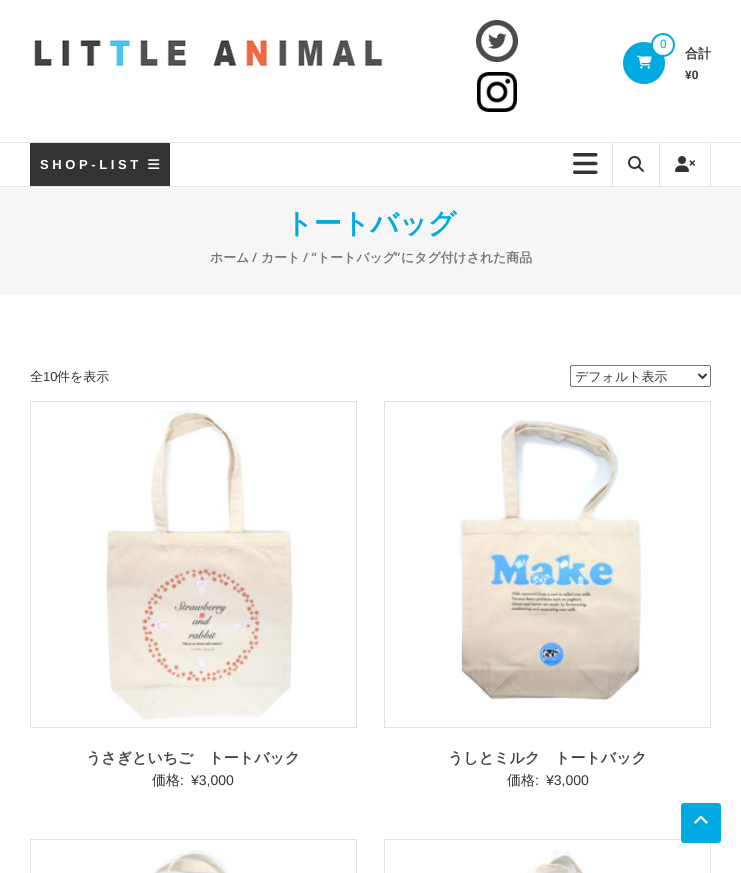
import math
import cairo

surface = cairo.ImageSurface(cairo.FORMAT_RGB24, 741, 873)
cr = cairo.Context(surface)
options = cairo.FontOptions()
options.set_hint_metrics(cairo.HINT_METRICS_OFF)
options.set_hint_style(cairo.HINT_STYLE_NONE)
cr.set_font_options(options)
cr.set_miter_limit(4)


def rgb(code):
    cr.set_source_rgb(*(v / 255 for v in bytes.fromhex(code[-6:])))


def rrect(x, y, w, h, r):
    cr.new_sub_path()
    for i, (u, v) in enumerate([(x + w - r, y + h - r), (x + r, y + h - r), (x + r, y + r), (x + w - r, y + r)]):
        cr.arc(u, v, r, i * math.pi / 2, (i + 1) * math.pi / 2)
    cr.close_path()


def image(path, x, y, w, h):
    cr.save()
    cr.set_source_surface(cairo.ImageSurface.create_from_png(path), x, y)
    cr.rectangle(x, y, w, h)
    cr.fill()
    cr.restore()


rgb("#ffffff")
cr.paint()
image("img/1.png", 34, 40, 349, 26)
image("img/2.png", 476, 20, 42, 42)
image("img/3.png", 477, 72, 40, 40)
rgb("#00a9e0")
cr.arc(644, 63, 21, 0, 2 * math.pi)
cr.fill()
image("img/4.png", 637, 55, 15, 14)
rgb("#ffffff")
cr.arc(663, 45, 11, 0, 2 * math.pi)
cr.fill_preserve()
rgb("#00a9e0")
cr.stroke()
for x, y, w, h, color in [
    (0, 142, 741, 1, "#e5e5e5"),
    (0, 186, 741, 1, "#e5e5e5"),
    (30, 143, 140, 43, "#333333"),
]:
    rgb(color)
    cr.rectangle(x, y, w, h)
    cr.fill()
image("img/5.png", 148, 159, 12, 10)
image("img/6.png", 573, 153, 25, 21)
rgb("#e5e5e5")
cr.rectangle(612, 143, 1, 43)
cr.fill()
image("img/7.png", 628, 156, 16, 16)
cr.rectangle(710, 143, 1, 43)
cr.fill()
cr.rectangle(659, 143, 1, 43)
cr.fill()
image("img/8.png", 675, 156, 20, 16)
rgb("#f6f6f6")
cr.rectangle(0, 187, 741, 108)
cr.fill()
rrect(570.5, 365.5, 140, 21, 1.5)
rgb("#767676")
cr.set_line_width(1)
cr.stroke()
cr.new_path()
cr.move_to(698.5, 374)
cr.line_to(702.5, 378)
cr.line_to(706.5, 374)
rgb("#333333")
cr.set_line_width(2)
cr.stroke()
cr.rectangle(30.5, 401.5, 326, 326)
rgb("#e1e1e1")
cr.set_line_width(1)
cr.stroke()
image("img/9.png", 102, 410, 192, 310)
cr.rectangle(384.5, 401.5, 326, 326)
cr.stroke()
image("img/10.png", 457, 419, 188, 286)
cr.rectangle(30.5, 839.5, 326, 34)
cr.stroke()
image("img/11.png", 152, 850, 77, 23)
cr.rectangle(384.5, 839.5, 326, 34)
cr.stroke()
image("img/12.png", 526, 849, 58, 24)
rgb("#00a9e0")
rrect(681, 803, 40, 40, 3)
cr.fill()
image("img/13.png", 694, 815, 14, 9)
cr.select_font_face("Liberation Sans")
cr.set_font_size(12)
cr.move_to(660, 48)
cr.show_text("0")
cr.select_font_face("WenQuanYi Zen Hei", cairo.FONT_SLANT_NORMAL, cairo.FONT_WEIGHT_BOLD)
cr.set_font_size(13)
rgb("#333333")
cr.move_to(685, 58)
cr.show_text("合計")
cr.select_font_face("Liberation Sans", cairo.FONT_SLANT_NORMAL, cairo.FONT_WEIGHT_BOLD)
cr.set_font_size(12)
cr.move_to(685, 79)
cr.show_text("¥0")
cr.set_font_size(13)
rgb("#ffffff")
cr.move_to(40, 169)
cr.show_text("S H O P - L I S T")
cr.select_font_face("WenQuanYi Zen Hei", cairo.FONT_SLANT_NORMAL, cairo.FONT_WEIGHT_BOLD)
cr.set_font_size(28)
rgb("#00a9e0")
cr.move_to(285, 233)
cr.show_text("トートバッグ")
cr.set_font_size(12.9)
rgb("#767676")
cr.move_to(210, 262)
cr.show_text("ホーム")
cr.select_font_face("Open Sans SemiBold")
cr.move_to(252, 262)
cr.show_text("/")
cr.select_font_face("WenQuanYi Zen Hei", cairo.FONT_SLANT_NORMAL, cairo.FONT_WEIGHT_BOLD)
cr.move_to(261, 262)
cr.show_text("カート")
cr.select_font_face("Open Sans SemiBold")
cr.move_to(303, 262)
cr.show_text("/ “")
cr.select_font_face("WenQuanYi Zen Hei", cairo.FONT_SLANT_NORMAL, cairo.FONT_WEIGHT_BOLD)
cr.move_to(317, 262)
cr.show_text("トートバッグ")
cr.select_font_face("Open Sans SemiBold")
cr.move_to(395, 262)
cr.show_text("”")
cr.select_font_face("WenQuanYi Zen Hei", cairo.FONT_SLANT_NORMAL, cairo.FONT_WEIGHT_BOLD)
cr.move_to(401, 262)
cr.show_text("にタグ付けされた商品")
cr.select_font_face("WenQuanYi Zen Hei Medium")
cr.set_font_size(13)
rgb("#333333")
cr.move_to(30, 381)
cr.show_text("全")
cr.select_font_face("Liberation Sans")
cr.move_to(43, 381)
cr.show_text("10")
cr.select_font_face("WenQuanYi Zen Hei Medium")
cr.move_to(57, 381)
cr.show_text("件を表示")
cr.move_to(575, 381)
cr.show_text("デフォルト表示")
cr.select_font_face("WenQuanYi Zen Hei", cairo.FONT_SLANT_NORMAL, cairo.FONT_WEIGHT_BOLD)
cr.set_font_size(15)
rgb("#454545")
cr.move_to(86, 763)
cr.show_text("うさぎといちご　トートバック")
cr.select_font_face("WenQuanYi Zen Hei Medium")
cr.set_font_size(14)
rgb("#333333")
cr.move_to(152, 785)
cr.show_text("価格")
cr.select_font_face("Liberation Sans")
cr.move_to(180, 785)
cr.show_text(":")
cr.move_to(191, 785)
cr.show_text("¥3,000")
cr.select_font_face("WenQuanYi Zen Hei", cairo.FONT_SLANT_NORMAL, cairo.FONT_WEIGHT_BOLD)
cr.set_font_size(15)
rgb("#454545")
cr.move_to(448, 763)
cr.show_text("うしとミルク　トートバック")
cr.select_font_face("WenQuanYi Zen Hei Medium")
cr.set_font_size(14)
rgb("#333333")
cr.move_to(507, 785)
cr.show_text("価格")
cr.select_font_face("Liberation Sans")
cr.move_to(535, 785)
cr.show_text(":")
cr.move_to(546, 785)
cr.show_text("¥3,000")
surface.write_to_png("page.png")
